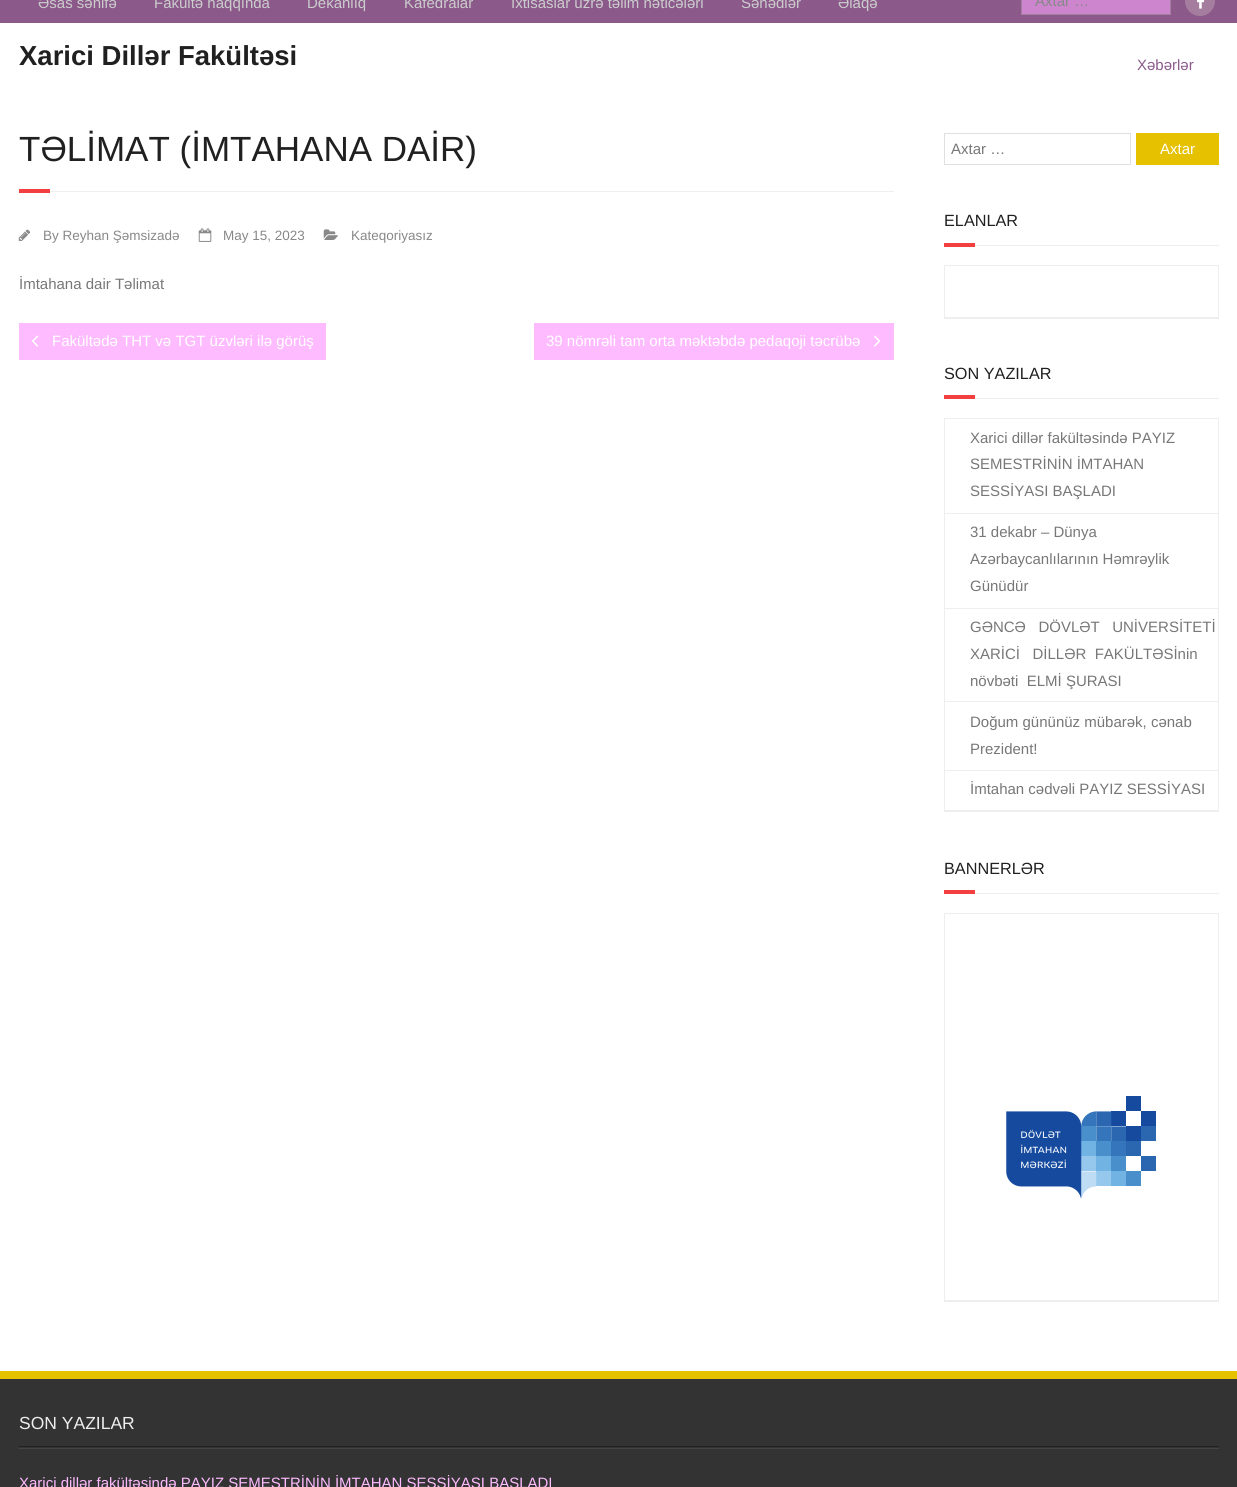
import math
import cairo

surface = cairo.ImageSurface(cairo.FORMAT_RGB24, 1237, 1487)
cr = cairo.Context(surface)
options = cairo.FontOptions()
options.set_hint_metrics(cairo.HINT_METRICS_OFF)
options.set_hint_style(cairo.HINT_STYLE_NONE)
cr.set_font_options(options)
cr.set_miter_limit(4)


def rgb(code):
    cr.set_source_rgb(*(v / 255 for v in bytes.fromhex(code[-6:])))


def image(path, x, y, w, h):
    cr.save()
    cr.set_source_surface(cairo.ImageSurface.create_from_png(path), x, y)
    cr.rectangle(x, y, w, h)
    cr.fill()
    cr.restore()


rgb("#ffffff")
cr.paint()
rgb("#8b5a8b")
cr.rectangle(0, 0, 1237, 23)
cr.fill()
rgb("#cd85cd")
cr.rectangle(1021.5, -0.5, 149, 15)
cr.fill_preserve()
rgb("#a57d9e")
cr.set_line_width(1)
cr.stroke()
cr.arc(1200, 1, 15, 0, 2 * math.pi)
cr.fill()
image("img/1.png", 1197, 0, 8, 9)
rgb("#f33f3f")
cr.rectangle(19, 189, 31, 4)
cr.fill()
rgb("#eeeeee")
cr.rectangle(50, 191, 844, 1)
cr.fill()
image("img/2.png", 18, 229, 13, 12)
image("img/3.png", 198, 228, 14, 14)
image("img/4.png", 323, 229, 15, 11)
rgb("#ffbbff")
cr.rectangle(19, 323, 307, 37)
cr.fill()
image("img/5.png", 31, 335, 8, 12)
cr.rectangle(534, 323, 360, 37)
cr.fill()
image("img/6.png", 874, 335, 7, 12)
cr.rectangle(944.5, 133.5, 186, 31)
rgb("#e0e0e0")
cr.stroke()
for x, y, w, h, color in [
    (1136, 133, 83, 32, "#e5c100"),
    (944, 318, 275, 1, "#eeeeee"),
    (944, 243, 31, 4, "#f33f3f"),
    (975, 245, 244, 1, "#eeeeee"),
]:
    rgb(color)
    cr.rectangle(x, y, w, h)
    cr.fill()
cr.rectangle(944.5, 265.5, 274, 52)
cr.stroke()
for x, y, w, h, color in [
    (944, 811, 275, 1, "#eeeeee"),
    (944, 395, 31, 4, "#f33f3f"),
    (975, 398, 244, 1, "#eeeeee"),
    (944, 418, 275, 1, "#eeeeee"),
    (1218, 418, 1, 393, "#eeeeee"),
    (944, 418, 1, 393, "#eeeeee"),
    (945, 513, 273, 1, "#eeeeee"),
    (945, 608, 273, 1, "#eeeeee"),
    (945, 701, 273, 1, "#eeeeee"),
    (945, 770, 273, 1, "#eeeeee"),
    (945, 810, 273, 1, "#eeeeee"),
    (944, 1301, 275, 1, "#eeeeee"),
    (944, 890, 31, 4, "#f33f3f"),
    (975, 893, 244, 1, "#eeeeee"),
]:
    rgb(color)
    cr.rectangle(x, y, w, h)
    cr.fill()
cr.rectangle(944.5, 913.5, 274, 387)
cr.stroke()
image("img/7.png", 1006, 1096, 150, 102)
rgb("#333333")
cr.rectangle(0, 1379, 1237, 108)
cr.fill()
rgb("#e5c100")
cr.rectangle(0, 1371, 1237, 8)
cr.fill()
rgb("#444444")
cr.new_path()
cr.move_to(19, 1448)
cr.line_to(19, 1449)
cr.line_to(1219, 1449)
cr.line_to(1219, 1411)
cr.line_to(1219, 1448)
cr.close_path()
cr.fill()
rgb("#222222")
cr.rectangle(19, 1446, 1200, 1)
cr.fill()
cr.select_font_face("Liberation Sans")
cr.set_font_size(15)
rgb("#cccccc")
for x, y, s in [
    (38, 8, "Əsas səhifə"),
    (154, 8, "Fakültə haqqında"),
    (307, 8, "Dekanlıq"),
    (404, 8, "Kafedralar"),
    (511, 8, "İxtisaslar üzrə təlim nəticələri"),
    (741, 8, "Sənədlər"),
    (838, 8, "Əlaqə"),
]:
    cr.move_to(x, y)
    cr.show_text(s)
rgb("#888888")
cr.move_to(1035, 6)
cr.show_text("Axtar …")
cr.select_font_face("Liberation Sans", cairo.FONT_SLANT_NORMAL, cairo.FONT_WEIGHT_BOLD)
cr.set_font_size(27.5)
rgb("#202020")
cr.move_to(19, 65)
cr.show_text("Xarici Dillər Fakültəsi")
cr.select_font_face("Liberation Sans")
cr.set_font_size(15)
rgb("#8b5a8b")
cr.move_to(1137, 70)
cr.show_text("Xəbərlər")
cr.set_font_size(35)
rgb("#202020")
cr.move_to(19, 161)
cr.show_text("TƏLİMAT (İMTAHANA DAİR)")
cr.set_font_size(13.5)
rgb("#888888")
for x, y, s in [
    (43, 240, "By Reyhan Şəmsizadə"),
    (223, 240, "May 15, 2023"),
    (351, 240, "Kateqoriyasız"),
]:
    cr.move_to(x, y)
    cr.show_text(s)
cr.set_font_size(15)
rgb("#777777")
cr.move_to(19, 289)
cr.show_text("İmtahana dair Təlimat")
rgb("#ffffff")
cr.move_to(52, 346)
cr.show_text("Fakültədə THT və TGT üzvləri ilə görüş")
cr.move_to(546, 346)
cr.show_text("39 nömrəli tam orta məktəbdə pedaqoji təcrübə")
rgb("#777777")
cr.move_to(951, 154)
cr.show_text("Axtar …")
rgb("#ffffff")
cr.move_to(1160, 154)
cr.show_text("Axtar")
cr.set_font_size(16.25)
rgb("#202020")
cr.move_to(944, 226)
cr.show_text("ELANLAR")
cr.move_to(944, 379)
cr.show_text("SON YAZILAR")
cr.set_font_size(15)
rgb("#777777")
for x, y, s in [
    (970, 443, "Xarici dillər fakültəsində PAYIZ"),
    (970, 469, "SEMESTRİNİN İMTAHAN"),
    (970, 496, "SESSİYASI BAŞLADI"),
    (970, 537, "31 dekabr – Dünya"),
    (970, 564, "Azərbaycanlılarının Həmrəylik"),
    (970, 591, "Günüdür"),
    (970, 632, "GƏNCƏ   DÖVLƏT   UNİVERSİTETİ"),
    (970, 659, "XARİCİ   DİLLƏR  FAKÜLTƏSİnin"),
    (970, 686, "növbəti  ELMİ ŞURASI"),
    (970, 727, "Doğum gününüz mübarək, cənab"),
    (970, 754, "Prezident!"),
    (970, 794, "İmtahan cədvəli PAYIZ SESSİYASI"),
]:
    cr.move_to(x, y)
    cr.show_text(s)
cr.set_font_size(16.25)
rgb("#202020")
cr.move_to(944, 874)
cr.show_text("BANNERLƏR")
cr.set_font_size(17.5)
rgb("#eeeeee")
cr.move_to(19, 1429)
cr.show_text("SON YAZILAR")
cr.set_font_size(15)
rgb("#ffbbff")
cr.move_to(19, 1488)
cr.show_text("Xarici dillər fakültəsində PAYIZ SEMESTRİNİN İMTAHAN SESSİYASI BAŞLADI")
surface.write_to_png("page.png")
